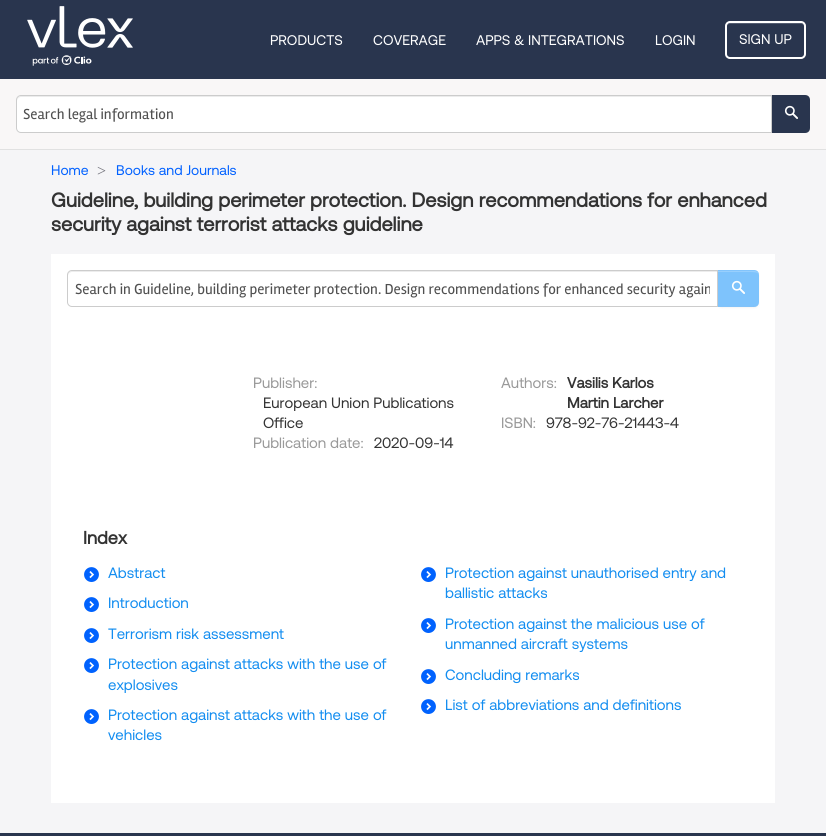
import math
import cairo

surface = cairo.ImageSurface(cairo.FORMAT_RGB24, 826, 836)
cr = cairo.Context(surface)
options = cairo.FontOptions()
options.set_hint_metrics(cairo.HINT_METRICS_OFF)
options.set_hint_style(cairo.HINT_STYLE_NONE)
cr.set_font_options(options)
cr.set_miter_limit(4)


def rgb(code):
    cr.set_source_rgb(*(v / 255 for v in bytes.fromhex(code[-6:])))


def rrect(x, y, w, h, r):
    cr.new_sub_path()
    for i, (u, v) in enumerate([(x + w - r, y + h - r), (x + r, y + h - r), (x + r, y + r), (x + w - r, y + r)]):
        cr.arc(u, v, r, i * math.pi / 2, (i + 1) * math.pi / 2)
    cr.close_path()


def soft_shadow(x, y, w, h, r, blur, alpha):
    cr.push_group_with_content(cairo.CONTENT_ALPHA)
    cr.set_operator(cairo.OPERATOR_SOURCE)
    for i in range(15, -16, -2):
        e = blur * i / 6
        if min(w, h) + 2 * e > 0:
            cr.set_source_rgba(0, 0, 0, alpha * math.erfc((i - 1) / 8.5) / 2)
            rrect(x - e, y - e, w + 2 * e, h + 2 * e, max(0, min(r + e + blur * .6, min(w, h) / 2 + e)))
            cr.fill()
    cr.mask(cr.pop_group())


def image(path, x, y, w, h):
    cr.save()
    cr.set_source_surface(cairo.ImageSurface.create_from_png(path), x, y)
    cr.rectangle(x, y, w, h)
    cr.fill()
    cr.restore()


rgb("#f5f5f7")
cr.paint()
rgb("#29354e")
cr.rectangle(0, 0, 826, 79)
cr.fill()
image("img/1.png", 27, 6, 106, 60)
rgb("#545d71")
cr.new_path()
cr.move_to(730, 24)
cr.line_to(801, 24)
cr.curve_to(803, 24, 804, 25, 804, 27)
cr.curve_to(804, 20, 793, 23, 789, 23)
cr.line_to(742, 23)
cr.curve_to(738, 23, 727, 20, 727, 27)
cr.curve_to(727, 25, 728, 24, 730, 24)
cr.close_path()
cr.fill()
rrect(726, 22, 79, 36, 4)
rgb("#ffffff")
cr.stroke()
rgb("#f9f7f7")
cr.rectangle(0, 79, 826, 70)
cr.fill()
rgb("#e1e1e1")
cr.rectangle(0, 149, 826, 1)
cr.fill()
rgb("#ffffff")
cr.new_path()
cr.move_to(21, 95)
cr.line_to(772, 95)
cr.line_to(772, 133)
cr.line_to(21, 133)
cr.curve_to(18, 133, 16, 131, 16, 128)
cr.line_to(16, 100)
cr.curve_to(16, 97, 18, 95, 21, 95)
cr.close_path()
cr.fill()
rgb("#ececec")
cr.new_path()
cr.move_to(21, 97)
cr.line_to(771, 97)
cr.line_to(771, 96)
cr.line_to(21, 96)
cr.curve_to(19, 96, 17, 98, 17, 100)
cr.line_to(17, 101)
cr.curve_to(17, 99, 19, 97, 21, 97)
cr.close_path()
cr.fill()
cr.new_path()
cr.move_to(21, 95.5)
cr.line_to(771.5, 95.5)
cr.line_to(771.5, 132.5)
cr.line_to(21, 132.5)
cr.curve_to(18.5, 132.5, 16.5, 130.5, 16.5, 128)
cr.line_to(16.5, 100)
cr.curve_to(16.5, 97.5, 18.5, 95.5, 21, 95.5)
cr.close_path()
rgb("#cccccc")
cr.set_line_width(1)
cr.stroke()
rgb("#29354e")
cr.new_path()
cr.move_to(772, 95)
cr.line_to(805, 95)
cr.curve_to(808, 95, 810, 97, 810, 100)
cr.line_to(810, 128)
cr.curve_to(810, 131, 808, 133, 805, 133)
cr.line_to(772, 133)
cr.close_path()
cr.fill()
image("img/2.png", 784, 105, 14, 14)
rgb("#ffffff")
cr.rectangle(51, 254, 724, 549)
cr.fill()
rgb("#000000")
soft_shadow(717, 271, 42, 37, 5, 1, 0.05)
rgb("#7ec3fc")
cr.new_path()
cr.move_to(717, 270)
cr.line_to(754, 270)
cr.curve_to(757, 270, 759, 272, 759, 275)
cr.line_to(759, 302)
cr.curve_to(759, 305, 757, 307, 754, 307)
cr.line_to(717, 307)
cr.close_path()
cr.fill()
rgb("#98cffd")
cr.new_path()
cr.move_to(717, 272)
cr.line_to(748, 272)
cr.curve_to(755, 272, 758, 272, 759, 275)
cr.curve_to(759, 273, 757, 271, 754, 271)
cr.line_to(717, 271)
cr.close_path()
cr.fill()
cr.set_source_rgba(0.659, 0.796, 1, 0.1)
cr.new_path()
cr.move_to(717, 270)
cr.line_to(717, 271)
cr.line_to(748, 271)
cr.curve_to(751, 271, 759, 270, 759, 275)
cr.curve_to(759, 272, 757, 270, 754, 270)
cr.close_path()
cr.fill()
cr.set_source_rgba(0.643, 0.741, 0.859, 0.1)
cr.new_path()
cr.move_to(717, 306)
cr.line_to(717, 307)
cr.line_to(748, 307)
cr.curve_to(752, 307, 759, 308, 759, 302)
cr.curve_to(759, 307, 751, 306, 748, 306)
cr.close_path()
cr.fill()
rgb("#ffffff")
cr.new_path()
cr.move_to(72, 270)
cr.line_to(718, 270)
cr.line_to(718, 307)
cr.line_to(72, 307)
cr.curve_to(69, 307, 67, 305, 67, 302)
cr.line_to(67, 275)
cr.curve_to(67, 272, 69, 270, 72, 270)
cr.close_path()
cr.fill()
rgb("#ececec")
cr.new_path()
cr.move_to(72, 272)
cr.line_to(717, 272)
cr.line_to(717, 271)
cr.line_to(72, 271)
cr.curve_to(70, 271, 68, 273, 68, 275)
cr.line_to(68, 276)
cr.curve_to(68, 274, 70, 272, 72, 272)
cr.close_path()
cr.fill()
cr.new_path()
cr.move_to(72, 270.5)
cr.line_to(717.5, 270.5)
cr.line_to(717.5, 306.5)
cr.line_to(72, 306.5)
cr.curve_to(69.5, 306.5, 67.5, 304.5, 67.5, 302)
cr.line_to(67.5, 275)
cr.curve_to(67.5, 272.5, 69.5, 270.5, 72, 270.5)
cr.close_path()
rgb("#cccccc")
cr.stroke()
image("img/3.png", 731, 280, 14, 14)
image("img/4.png", 84, 567, 15, 15)
image("img/4.png", 421, 567, 15, 15)
image("img/4.png", 84, 597, 15, 15)
image("img/4.png", 84, 628, 15, 15)
image("img/4.png", 421, 618, 15, 15)
image("img/4.png", 84, 658, 15, 15)
image("img/4.png", 421, 669, 15, 15)
image("img/4.png", 421, 699, 15, 15)
image("img/4.png", 84, 709, 15, 15)
rgb("#29354e")
cr.rectangle(0, 833, 826, 3)
cr.fill()
cr.select_font_face("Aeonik")
cr.set_font_size(14)
rgb("#ffffff")
for x, y, s in [
    (270, 45, "PRODUCTS"),
    (373, 45, "COVERAGE"),
    (476, 45, "APPS & INTEGRATIONS"),
    (655, 45, "LOGIN"),
    (739, 44, "SIGN UP"),
]:
    cr.move_to(x, y)
    cr.show_text(s)
cr.select_font_face("Rambla")
cr.set_font_size(15)
rgb("#505050")
cr.move_to(23, 119)
cr.show_text("Search legal information")
cr.select_font_face("Aeonik")
cr.set_font_size(14)
rgb("#0161ff")
cr.move_to(51, 175)
cr.show_text("Home")
cr.select_font_face("Liberation Serif")
cr.set_font_size(16)
rgb("#71717a")
cr.move_to(97, 176)
cr.show_text(">")
cr.select_font_face("Aeonik")
cr.set_font_size(14)
rgb("#0161ff")
cr.move_to(116, 175)
cr.show_text("Books and Journals")
cr.select_font_face("Aeonik", cairo.FONT_SLANT_NORMAL, cairo.FONT_WEIGHT_BOLD)
cr.set_font_size(20)
rgb("#333333")
cr.move_to(51, 207)
cr.show_text("Guideline, building perimeter protection. Design recommendations for enhanced")
cr.move_to(51, 231)
cr.show_text("security against terrorist attacks guideline")
cr.save()
cr.rectangle(75, 280, 635, 18)
cr.clip()
cr.select_font_face("Rambla")
cr.set_font_size(15)
rgb("#505050")
cr.move_to(75, 294)
cr.show_text("Search in Guideline, building perimeter protection. Design recommendations for enhanced security again")
cr.restore()
cr.select_font_face("Aeonik")
cr.set_font_size(15)
rgb("#999999")
cr.move_to(253, 388)
cr.show_text("Publisher:")
rgb("#333333")
cr.move_to(263, 408)
cr.show_text("European Union Publications")
cr.move_to(263, 428)
cr.show_text("Office")
rgb("#999999")
cr.move_to(253, 448)
cr.show_text("Publication date:")
rgb("#333333")
cr.move_to(374, 448)
cr.show_text("2020-09-14")
rgb("#999999")
cr.move_to(501, 388)
cr.show_text("Authors:")
cr.select_font_face("Aeonik", cairo.FONT_SLANT_NORMAL, cairo.FONT_WEIGHT_BOLD)
rgb("#333333")
cr.move_to(567, 388)
cr.show_text("Vasilis Karlos")
cr.move_to(567, 408)
cr.show_text("Martin Larcher")
cr.select_font_face("Aeonik")
rgb("#999999")
cr.move_to(501, 428)
cr.show_text("ISBN:")
rgb("#333333")
cr.move_to(546, 428)
cr.show_text("978-92-76-21443-4")
cr.select_font_face("Aeonik", cairo.FONT_SLANT_NORMAL, cairo.FONT_WEIGHT_BOLD)
cr.set_font_size(18)
cr.move_to(83, 544)
cr.show_text("Index")
cr.select_font_face("Aeonik")
cr.set_font_size(15)
rgb("#138df0")
for x, y, s in [
    (108, 578, "Abstract"),
    (445, 578, "Protection against unauthorised entry and"),
    (445, 598, "ballistic attacks"),
    (108, 608, "Introduction"),
    (108, 639, "Terrorism risk assessment"),
    (445, 629, "Protection against the malicious use of"),
    (445, 649, "unmanned aircraft systems"),
    (108, 669, "Protection against attacks with the use of"),
    (108, 690, "explosives"),
    (445, 680, "Concluding remarks"),
    (445, 710, "List of abbreviations and definitions"),
    (108, 720, "Protection against attacks with the use of"),
    (108, 740, "vehicles"),
]:
    cr.move_to(x, y)
    cr.show_text(s)
surface.write_to_png("page.png")
